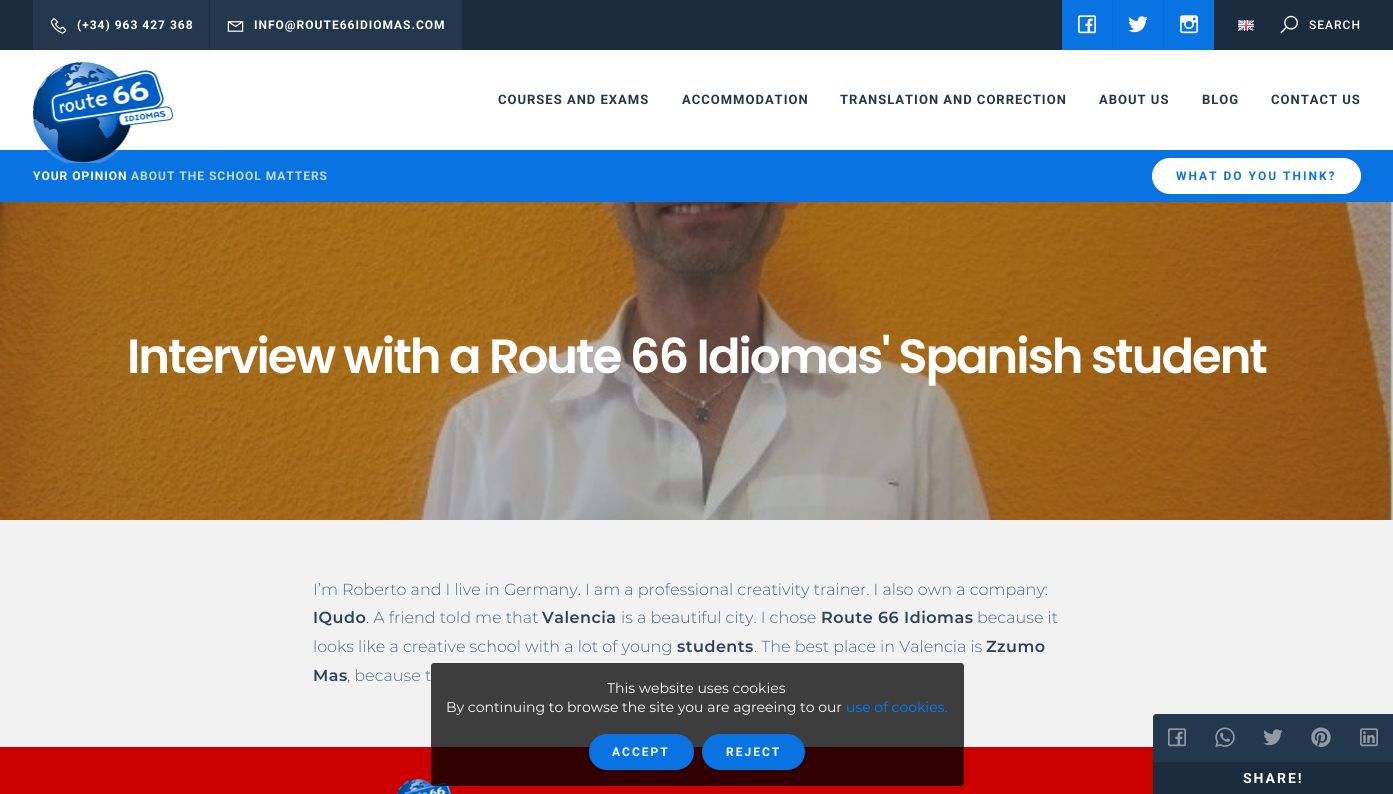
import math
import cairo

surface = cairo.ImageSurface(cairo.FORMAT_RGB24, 1393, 794)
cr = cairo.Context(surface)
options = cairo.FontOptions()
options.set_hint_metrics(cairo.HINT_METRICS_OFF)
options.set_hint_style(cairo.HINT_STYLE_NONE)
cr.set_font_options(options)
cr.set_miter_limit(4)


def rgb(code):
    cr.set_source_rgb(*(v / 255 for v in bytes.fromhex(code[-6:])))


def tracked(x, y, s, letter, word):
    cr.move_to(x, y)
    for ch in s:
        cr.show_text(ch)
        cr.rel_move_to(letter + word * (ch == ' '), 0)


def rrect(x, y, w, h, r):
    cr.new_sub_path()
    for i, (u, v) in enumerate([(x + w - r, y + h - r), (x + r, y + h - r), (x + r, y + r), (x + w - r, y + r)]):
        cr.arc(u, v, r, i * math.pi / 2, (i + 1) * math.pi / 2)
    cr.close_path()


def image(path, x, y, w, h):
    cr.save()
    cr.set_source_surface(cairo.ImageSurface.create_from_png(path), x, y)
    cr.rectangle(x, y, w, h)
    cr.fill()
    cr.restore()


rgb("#f2f2f2")
cr.paint()
rgb("#1b2c3f")
cr.rectangle(0, 0, 1393, 50)
cr.fill()
rgb("#23374d")
cr.rectangle(33, 0, 176, 50)
cr.fill()
image("img/1.png", 50, 18, 17, 16)
cr.rectangle(210, 0, 252, 50)
cr.fill()
image("img/2.png", 227, 21, 17, 11)
rgb("#0873e1")
cr.rectangle(1062, 0, 50, 50)
cr.fill()
image("img/3.png", 1078, 15, 18, 19)
cr.rectangle(1113, 0, 50, 50)
cr.fill()
rgb("#0a6adf")
cr.rectangle(1112, 0, 1, 50)
cr.fill()
image("img/4.png", 1128, 16, 20, 17)
rgb("#0873e1")
cr.rectangle(1164, 0, 50, 50)
cr.fill()
rgb("#0a6adf")
cr.rectangle(1163, 0, 1, 50)
cr.fill()
image("img/5.png", 1180, 15, 18, 19)
image("img/6.png", 1238, 20, 16, 11)
image("img/7.png", 1280, 15, 18, 19)
rgb("#ffffff")
cr.rectangle(0, 50, 1393, 100)
cr.fill()
rgb("#0873e1")
cr.rectangle(0, 150, 1393, 52)
cr.fill()
image("img/8.png", 33, 62, 140, 101)
rgb("#ffffff")
rrect(1152, 158, 209, 36, 18)
cr.fill()
image("img/9.png", 0, 202, 1393, 318)
rgb("#cc0000")
cr.rectangle(0, 747, 1153, 47)
cr.fill()
image("img/10.png", 396, 778, 56, 16)
rgb("#23374d")
cr.new_path()
cr.move_to(1156, 714)
cr.line_to(1393, 714)
cr.line_to(1393, 794)
cr.line_to(1153, 794)
cr.line_to(1153, 717)
cr.curve_to(1153, 715.5, 1154.5, 714, 1156, 714)
cr.close_path()
cr.fill()
image("img/11.png", 1168, 728, 18, 19)
image("img/12.png", 1215, 727, 20, 20)
image("img/13.png", 1263, 729, 20, 17)
image("img/14.png", 1311, 727, 20, 20)
image("img/15.png", 1360, 728, 18, 19)
rgb("#1b2c3f")
cr.rectangle(1153, 762, 240, 32)
cr.fill()
cr.set_source_rgba(0, 0, 0, 0.75)
rrect(431, 663, 533, 123, 3)
cr.fill()
rgb("#0873e1")
rrect(589, 734, 105, 36, 18)
cr.fill()
rrect(702, 734, 103, 36, 18)
cr.fill()
cr.select_font_face("Roboto", cairo.FONT_SLANT_NORMAL, cairo.FONT_WEIGHT_BOLD)
cr.set_font_size(12)
rgb("#ffffff")
tracked(77, 29, "(+34) 963 427 368", 1, 0)
tracked(254, 29, "INFO@ROUTE66IDIOMAS.COM", 1, 0)
cr.select_font_face("Roboto Medium")
tracked(1309, 29, "SEARCH", 1, 0)
cr.select_font_face("Roboto", cairo.FONT_SLANT_NORMAL, cairo.FONT_WEIGHT_BOLD)
cr.set_font_size(13)
rgb("#23374d")
for x, y, s in [
    (498, 104, "COURSES AND EXAMS"),
    (682, 104, "ACCOMMODATION"),
    (840, 104, "TRANSLATION AND CORRECTION"),
    (1099, 104, "ABOUT US"),
    (1202, 104, "BLOG"),
    (1271, 104, "CONTACT US"),
]:
    tracked(x, y, s, 1, 0)
cr.set_font_size(12)
rgb("#ffffff")
tracked(33, 180, "YOUR OPINION", 1, 0)
rgb("#c1dcf8")
tracked(131, 180, "ABOUT THE SCHOOL MATTERS", 1, 0)
rgb("#0873e1")
tracked(1176, 180, "WHAT DO YOU THINK?", 2, 0)
cr.select_font_face("Poppins SemiBold")
cr.set_font_size(48)
rgb("#ffffff")
tracked(127, 373, "Interview with a Route 66 Idiomas' Spanish student", -2, 0)
cr.select_font_face("Montserrat Light")
cr.set_font_size(16)
rgb("#486989")
cr.move_to(313, 595)
cr.show_text("I’m Roberto and I live in Germany. I am a professional creativity trainer. I also own a company:")
cr.select_font_face("Montserrat SemiBold")
rgb("#2b435c")
tracked(313, 623, "IQudo", 0.5, 0)
cr.select_font_face("Montserrat Light")
rgb("#486989")
cr.move_to(366, 623)
cr.show_text(". A friend told me that")
cr.select_font_face("Montserrat SemiBold")
rgb("#2b435c")
tracked(542, 623, "Valencia", 0.5, 0)
cr.select_font_face("Montserrat Light")
rgb("#486989")
cr.move_to(621, 623)
cr.show_text("is a beautiful city. I chose")
cr.select_font_face("Montserrat SemiBold")
rgb("#2b435c")
tracked(821, 623, "Route 66 Idiomas", 0.5, 0)
cr.select_font_face("Montserrat Light")
rgb("#486989")
cr.move_to(977, 623)
cr.show_text("because it")
cr.move_to(313, 652)
cr.show_text("looks like a creative school with a lot of young")
cr.select_font_face("Montserrat SemiBold")
rgb("#2b435c")
tracked(677, 652, "students", 0.5, 0)
cr.select_font_face("Montserrat Light")
rgb("#486989")
cr.move_to(754, 652)
cr.show_text(". The best place in Valencia is")
cr.select_font_face("Montserrat SemiBold")
rgb("#2b435c")
tracked(986, 652, "Zzumo", 0.5, 0)
tracked(313, 681, "Mas", 0.5, 0)
cr.select_font_face("Montserrat Light")
rgb("#486989")
cr.move_to(347, 681)
cr.show_text(", because t")
cr.select_font_face("Roboto", cairo.FONT_SLANT_NORMAL, cairo.FONT_WEIGHT_BOLD)
cr.set_font_size(14)
rgb("#ffffff")
tracked(1243, 783, "SHARE!", 2, 0)
cr.select_font_face("Montserrat")
cr.move_to(607, 693)
cr.show_text("This website uses cookies")
cr.move_to(446, 712)
cr.show_text("By continuing to browse the site you are agreeing to our")
rgb("#007bff")
cr.move_to(846, 712)
cr.show_text("use of cookies.")
cr.select_font_face("Roboto", cairo.FONT_SLANT_NORMAL, cairo.FONT_WEIGHT_BOLD)
cr.set_font_size(12)
rgb("#ffffff")
tracked(612, 756, "ACCEPT", 2, 0)
tracked(726, 756, "REJECT", 2, 0)
surface.write_to_png("page.png")
